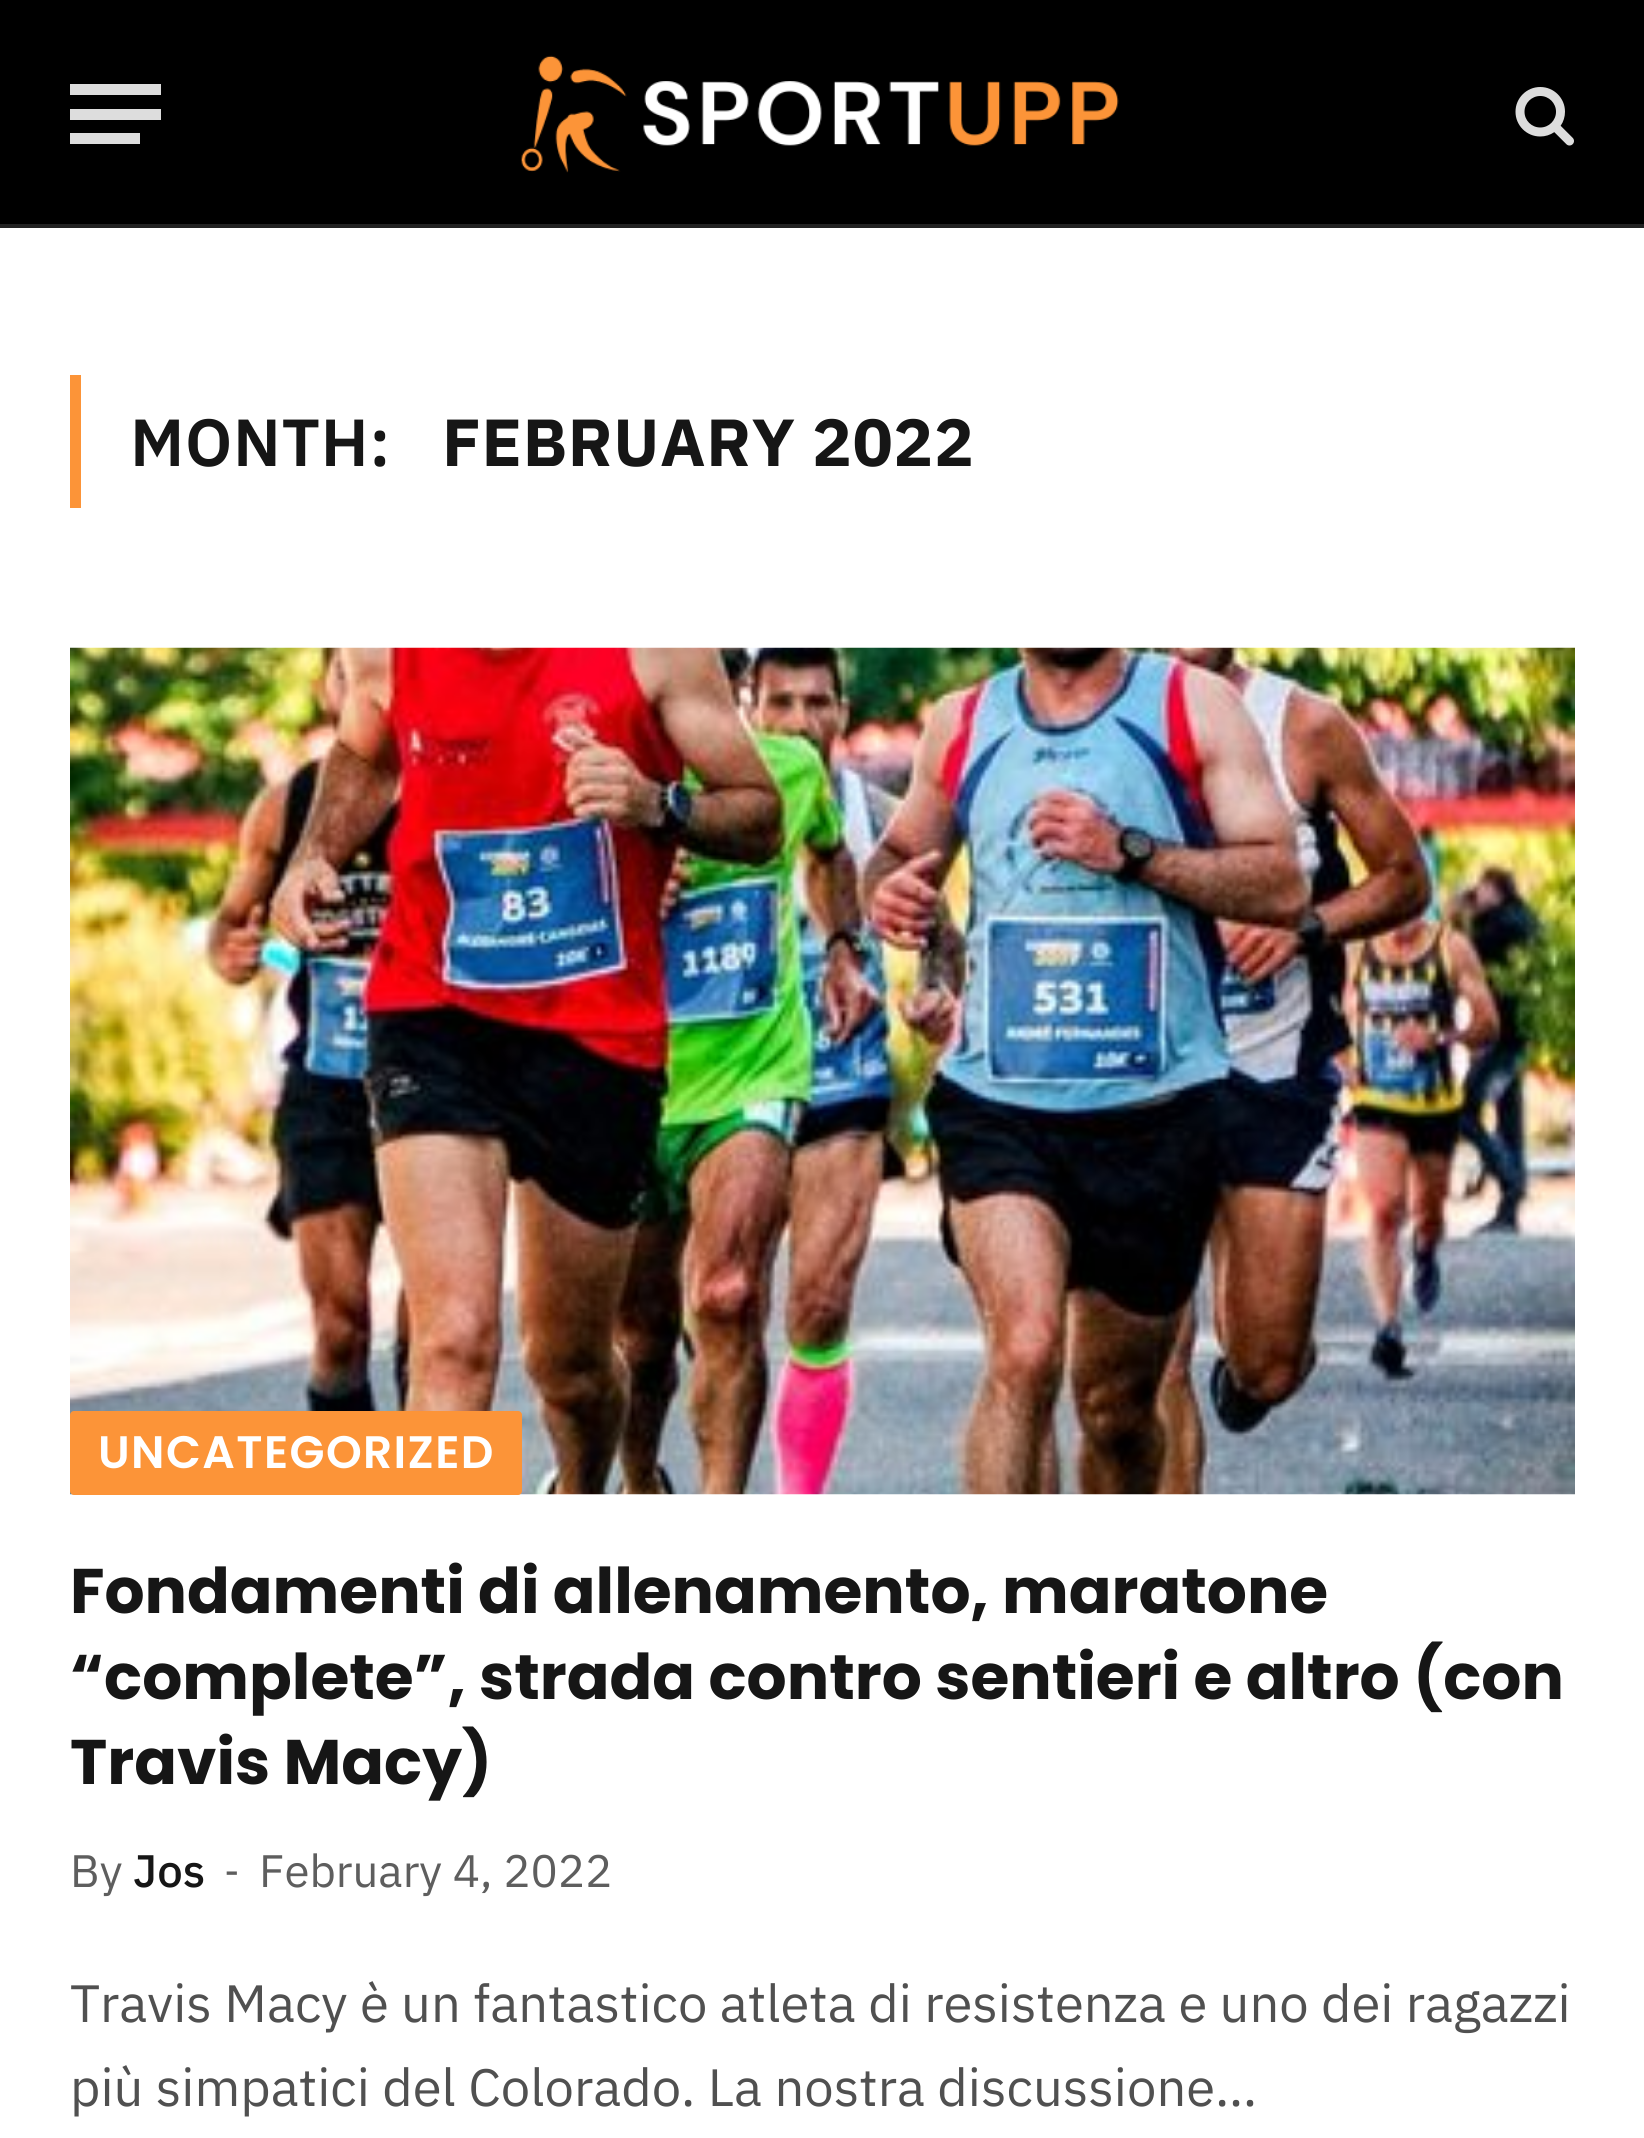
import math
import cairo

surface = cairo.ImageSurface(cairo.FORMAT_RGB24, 1644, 2138)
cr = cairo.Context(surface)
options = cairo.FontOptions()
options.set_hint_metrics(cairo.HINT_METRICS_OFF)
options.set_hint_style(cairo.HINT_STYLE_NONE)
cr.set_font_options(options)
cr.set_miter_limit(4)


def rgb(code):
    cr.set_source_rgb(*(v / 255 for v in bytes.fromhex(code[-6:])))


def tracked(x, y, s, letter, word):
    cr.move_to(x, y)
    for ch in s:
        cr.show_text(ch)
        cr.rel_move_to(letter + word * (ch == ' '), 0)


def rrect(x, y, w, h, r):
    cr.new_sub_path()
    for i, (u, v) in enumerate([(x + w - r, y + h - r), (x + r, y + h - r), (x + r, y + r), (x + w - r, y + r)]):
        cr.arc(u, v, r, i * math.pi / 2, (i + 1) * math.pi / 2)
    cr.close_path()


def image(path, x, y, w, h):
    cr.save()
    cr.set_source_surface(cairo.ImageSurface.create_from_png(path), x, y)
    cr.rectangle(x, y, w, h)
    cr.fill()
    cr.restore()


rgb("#ffffff")
cr.paint()
for x, y, w, h, color in [
    (0, 0, 1644, 224, "#000000"),
    (0, 224, 1644, 4, "#222222"),
    (70, 133, 70, 11, "#dddddd"),
    (70, 84, 91, 11, "#dddddd"),
    (70, 109, 91, 11, "#dddddd"),
]:
    rgb(color)
    cr.rectangle(x, y, w, h)
    cr.fill()
image("img/1.png", 521, 55, 598, 118)
image("img/2.png", 1515, 87, 59, 59)
rgb("#fc9438")
cr.rectangle(70, 375, 11, 133)
cr.fill()
image("img/3.png", 70, 647, 1505, 848)
rrect(70, 1411, 452, 84, 4)
cr.fill()
cr.select_font_face("IBM Plex Sans SemiBold")
cr.set_font_size(66.5)
rgb("#161616")
tracked(130, 466, "MONTH:", 0.7, 0)
cr.select_font_face("IBM Plex Sans", cairo.FONT_SLANT_NORMAL, cairo.FONT_WEIGHT_BOLD)
tracked(442, 466, "FEBRUARY 2022", 0.7, 0)
cr.select_font_face("Poppins SemiBold")
cr.set_font_size(45.5)
rgb("#ffffff")
tracked(98, 1468, "UNCATEGORIZED", 1.4, 0)
cr.select_font_face("Poppins", cairo.FONT_SLANT_NORMAL, cairo.FONT_WEIGHT_BOLD)
cr.set_font_size(63)
rgb("#161616")
for x, y, s in [
    (70, 1613, "Fondamenti di allenamento, maratone"),
    (70, 1699, "“complete”, strada contro sentieri e altro (con"),
    (70, 1784, "Travis Macy)"),
]:
    cr.move_to(x, y)
    cr.show_text(s)
cr.select_font_face("IBM Plex Sans")
cr.set_font_size(45.5)
rgb("#5e5e5e")
cr.move_to(70, 1887)
cr.show_text("By")
cr.select_font_face("IBM Plex Sans Medium")
rgb("#161616")
cr.move_to(133, 1887)
cr.show_text("Jos")
cr.select_font_face("IBM Plex Sans")
cr.set_font_size(39)
rgb("#5e5e5e")
cr.move_to(224, 1885)
cr.show_text("-")
cr.set_font_size(45.5)
cr.move_to(259, 1887)
cr.show_text("February 4, 2022")
cr.set_font_size(52.5)
rgb("#505050")
cr.move_to(70, 2022)
cr.show_text("Travis Macy è un fantastico atleta di resistenza e uno dei ragazzi")
cr.move_to(70, 2106)
cr.show_text("più simpatici del Colorado. La nostra discussione…")
surface.write_to_png("page.png")
